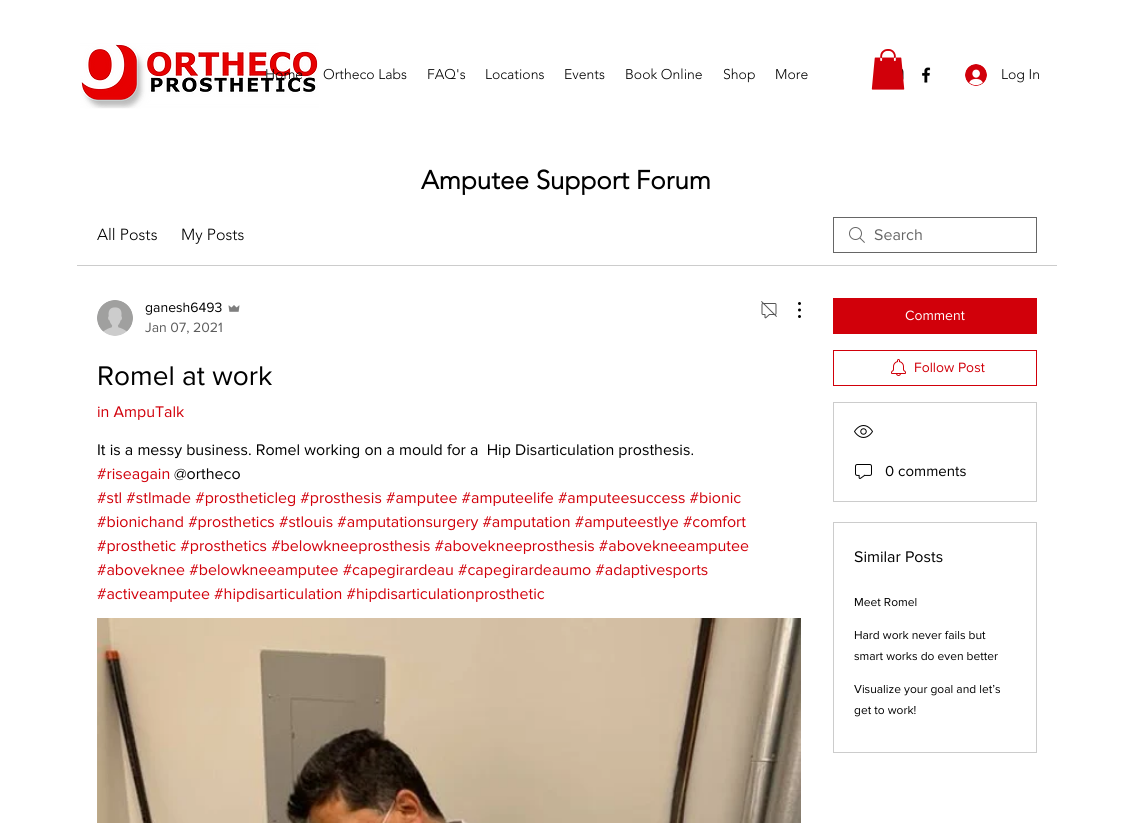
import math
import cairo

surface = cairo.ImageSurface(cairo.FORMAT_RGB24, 1134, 823)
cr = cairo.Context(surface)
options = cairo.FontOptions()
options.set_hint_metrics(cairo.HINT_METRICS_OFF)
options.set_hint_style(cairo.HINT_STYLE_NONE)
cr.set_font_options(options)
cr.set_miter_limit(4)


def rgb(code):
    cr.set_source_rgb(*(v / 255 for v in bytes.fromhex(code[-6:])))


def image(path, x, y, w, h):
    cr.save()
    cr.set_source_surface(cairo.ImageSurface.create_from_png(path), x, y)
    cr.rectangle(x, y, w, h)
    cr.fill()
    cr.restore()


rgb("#ffffff")
cr.paint()
image("img/1.png", 80, 43, 239, 66)
image("img/3.png", 902, 68, 2, 12)
image("img/2.png", 871, 49, 34, 41)
image("img/4.png", 922, 67, 9, 16)
image("img/5.png", 965, 64, 22, 22)
rgb("#cccccc")
cr.rectangle(77, 265, 980, 1)
cr.fill()
image("img/6.png", 849, 227, 16, 16)
cr.rectangle(833.5, 217.5, 203, 35)
rgb("#666666")
cr.set_line_width(1)
cr.stroke()
image("img/7.png", 97, 300, 36, 36)
image("img/8.png", 228, 305, 12, 7)
image("img/9.png", 761, 301, 16, 18)
image("img/10.png", 798, 302, 3, 16)
image("img/11.png", 97, 618, 704, 205)
rgb("#d1000a")
cr.rectangle(833, 298, 204, 36)
cr.fill()
cr.rectangle(833.5, 350.5, 203, 35)
cr.stroke()
image("img/12.png", 891, 359, 15, 17)
cr.rectangle(833.5, 402.5, 203, 99)
rgb("#cccccc")
cr.stroke()
image("img/13.png", 854, 425, 19, 13)
image("img/14.png", 855, 464, 17, 15)
cr.rectangle(833.5, 522.5, 203, 230)
cr.stroke()
cr.select_font_face("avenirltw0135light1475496 Light")
cr.set_font_size(14)
rgb("#000000")
for x, y, s in [
    (265, 79, "Home"),
    (323, 79, "Ortheco Labs"),
    (427, 79, "FAQ's"),
    (485, 79, "Locations"),
    (564, 79, "Events"),
    (625, 79, "Book Online"),
    (723, 79, "Shop"),
    (775, 79, "More"),
    (1001, 79, "Log In"),
]:
    cr.move_to(x, y)
    cr.show_text(s)
cr.select_font_face("avenirltw0135light1475496", cairo.FONT_SLANT_NORMAL, cairo.FONT_WEIGHT_BOLD)
cr.set_font_size(26)
cr.move_to(421, 189)
cr.show_text("Amputee Support Forum")
cr.select_font_face("avenirltw0135light1475496 Light")
cr.set_font_size(16)
cr.move_to(97, 240)
cr.show_text("All Posts")
cr.move_to(181, 240)
cr.show_text("My Posts")
cr.select_font_face("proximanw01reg")
rgb("#666666")
cr.move_to(874, 240)
cr.show_text("Search")
cr.set_font_size(14)
rgb("#000000")
cr.move_to(145, 312)
cr.show_text("ganesh6493")
rgb("#5c5c5c")
cr.move_to(145, 332)
cr.show_text("Jan 07, 2021")
cr.set_font_size(28)
rgb("#000000")
cr.move_to(97, 385)
cr.show_text("Romel at work")
cr.set_font_size(16)
rgb("#d1000a")
cr.move_to(97, 417)
cr.show_text("in AmpuTalk")
rgb("#000000")
cr.move_to(97, 455)
cr.show_text("It is a messy business. Romel working on a mould for a  Hip Disarticulation prosthesis.")
rgb("#d1000a")
cr.move_to(97, 479)
cr.show_text("#riseagain")
rgb("#000000")
cr.move_to(174, 479)
cr.show_text("@ortheco")
rgb("#d1000a")
for x, y, s in [
    (97, 503, "#stl #stlmade #prostheticleg #prosthesis #amputee #amputeelife #amputeesuccess #bionic"),
    (97, 527, "#bionichand #prosthetics #stlouis #amputationsurgery #amputation #amputeestlye #comfort"),
    (97, 551, "#prosthetic #prosthetics #belowkneeprosthesis #abovekneeprosthesis #abovekneeamputee"),
    (97, 575, "#aboveknee #belowkneeamputee #capegirardeau #capegirardeaumo #adaptivesports"),
    (97, 599, "#activeamputee #hipdisarticulation #hipdisarticulationprosthetic"),
]:
    cr.move_to(x, y)
    cr.show_text(s)
cr.set_font_size(14)
rgb("#ffffff")
cr.move_to(905, 320)
cr.show_text("Comment")
rgb("#d1000a")
cr.move_to(914, 372)
cr.show_text("Follow Post")
cr.set_font_size(15)
rgb("#000000")
cr.move_to(885, 476)
cr.show_text("0 comments")
cr.set_font_size(16)
cr.move_to(854, 562)
cr.show_text("Similar Posts")
cr.set_font_size(12)
for x, y, s in [
    (854, 606, "Meet Romel"),
    (854, 639, "Hard work never fails but"),
    (854, 660, "smart works do even better"),
    (854, 693, "Visualize your goal and let’s"),
    (854, 714, "get to work!"),
]:
    cr.move_to(x, y)
    cr.show_text(s)
surface.write_to_png("page.png")
